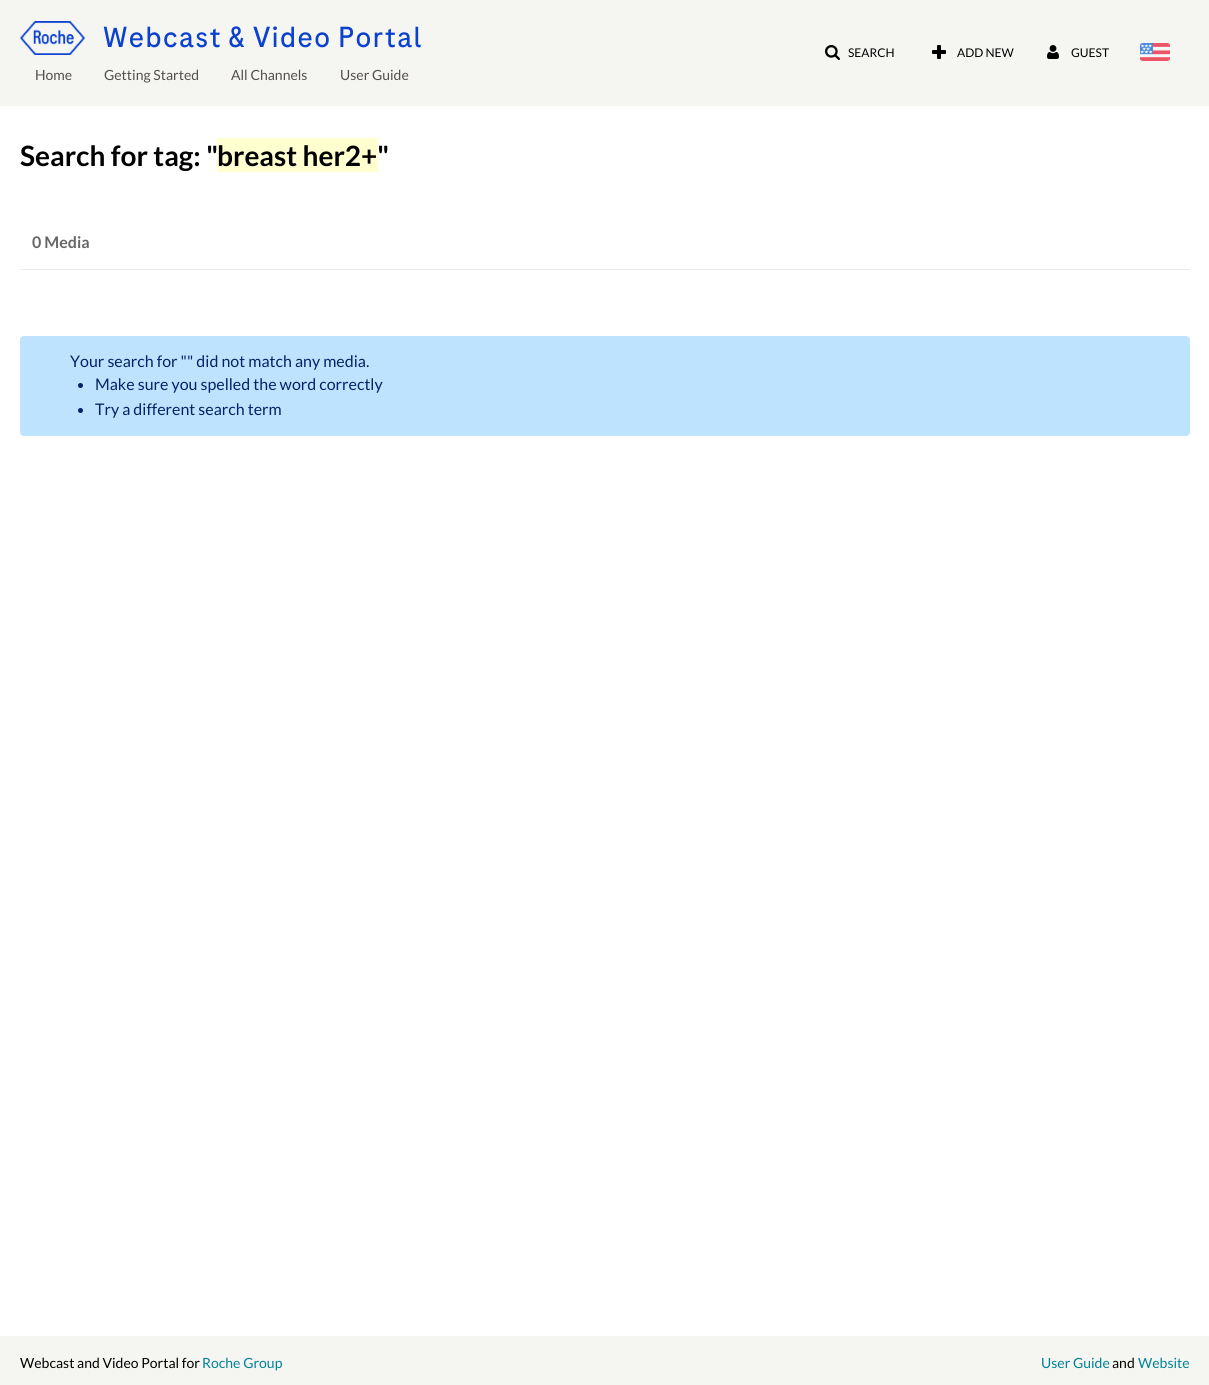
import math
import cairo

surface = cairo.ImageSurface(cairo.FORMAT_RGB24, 1209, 1385)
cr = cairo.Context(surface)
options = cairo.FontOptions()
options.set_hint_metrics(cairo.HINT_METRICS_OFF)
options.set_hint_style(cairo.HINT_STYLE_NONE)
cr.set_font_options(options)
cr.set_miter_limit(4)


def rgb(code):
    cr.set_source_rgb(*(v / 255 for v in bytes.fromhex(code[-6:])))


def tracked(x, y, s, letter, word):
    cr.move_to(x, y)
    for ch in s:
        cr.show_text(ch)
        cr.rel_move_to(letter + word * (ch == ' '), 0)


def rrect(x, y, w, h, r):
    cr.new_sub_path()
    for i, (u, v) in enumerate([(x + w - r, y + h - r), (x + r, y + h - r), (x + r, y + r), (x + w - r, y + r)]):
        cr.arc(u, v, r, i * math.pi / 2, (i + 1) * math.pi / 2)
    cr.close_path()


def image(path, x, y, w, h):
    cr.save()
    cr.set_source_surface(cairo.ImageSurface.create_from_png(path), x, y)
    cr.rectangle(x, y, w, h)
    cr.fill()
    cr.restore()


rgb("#ffffff")
cr.paint()
rgb("#f5f5f2")
cr.rectangle(0, 0, 1209, 106)
cr.fill()
image("img/1.png", 20, 21, 65, 34)
image("img/2.png", 825, 45, 15, 15)
image("img/3.png", 932, 45, 14, 14)
image("img/4.png", 1047, 45, 12, 14)
image("img/5.png", 1140, 43, 30, 18)
rgb("#ffffcf")
cr.rectangle(217, 138, 161, 34)
cr.fill()
rgb("#ebebeb")
cr.rectangle(20, 269, 1170, 1)
cr.fill()
rgb("#bde3ff")
rrect(20, 336, 1170, 100, 4)
cr.fill()
rgb("#022366")
cr.arc(80.5, 385.5, 2.5, 0, 2 * math.pi)
cr.fill()
cr.arc(80.5, 410.5, 2.5, 0, 2 * math.pi)
cr.fill()
rgb("#f5f5f2")
cr.rectangle(0, 1336, 1209, 49)
cr.fill()
cr.select_font_face("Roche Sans")
cr.set_font_size(29)
rgb("#0b41cd")
tracked(103, 47, "Webcast & Video Portal", 1, 0)
cr.select_font_face("Lato")
cr.set_font_size(12)
rgb("#000000")
for x, y, s in [
    (848, 57, "SEARCH"),
    (957, 57, "ADD NEW"),
    (1071, 57, "GUEST"),
]:
    cr.move_to(x, y)
    cr.show_text(s)
cr.set_font_size(14)
rgb("#544f4f")
for x, y, s in [
    (35, 80, "Home"),
    (104, 80, "Getting Started"),
    (231, 80, "All Channels"),
    (340, 80, "User Guide"),
]:
    cr.move_to(x, y)
    cr.show_text(s)
cr.select_font_face("Lato", cairo.FONT_SLANT_NORMAL, cairo.FONT_WEIGHT_BOLD)
cr.set_font_size(28)
rgb("#000000")
cr.move_to(20, 166)
cr.show_text("Search for tag: \"")
cr.move_to(217, 166)
cr.show_text("breast her2+\"")
cr.set_font_size(16)
rgb("#666666")
cr.move_to(32, 248)
cr.show_text("0 Media")
cr.select_font_face("Lato")
rgb("#022366")
for x, y, s in [
    (70, 367, "Your search for \"\" did not match any media."),
    (95, 390, "Make sure you spelled the word correctly"),
    (95, 415, "Try a different search term"),
]:
    cr.move_to(x, y)
    cr.show_text(s)
cr.set_font_size(14)
rgb("#000000")
cr.move_to(20, 1368)
cr.show_text("Webcast and Video Portal for")
rgb("#008297")
cr.move_to(202, 1368)
cr.show_text("Roche Group")
cr.move_to(1041, 1368)
cr.show_text("User Guide")
rgb("#000000")
cr.move_to(1112, 1368)
cr.show_text("and")
rgb("#008297")
cr.move_to(1138, 1368)
cr.show_text("Website")
surface.write_to_png("page.png")
